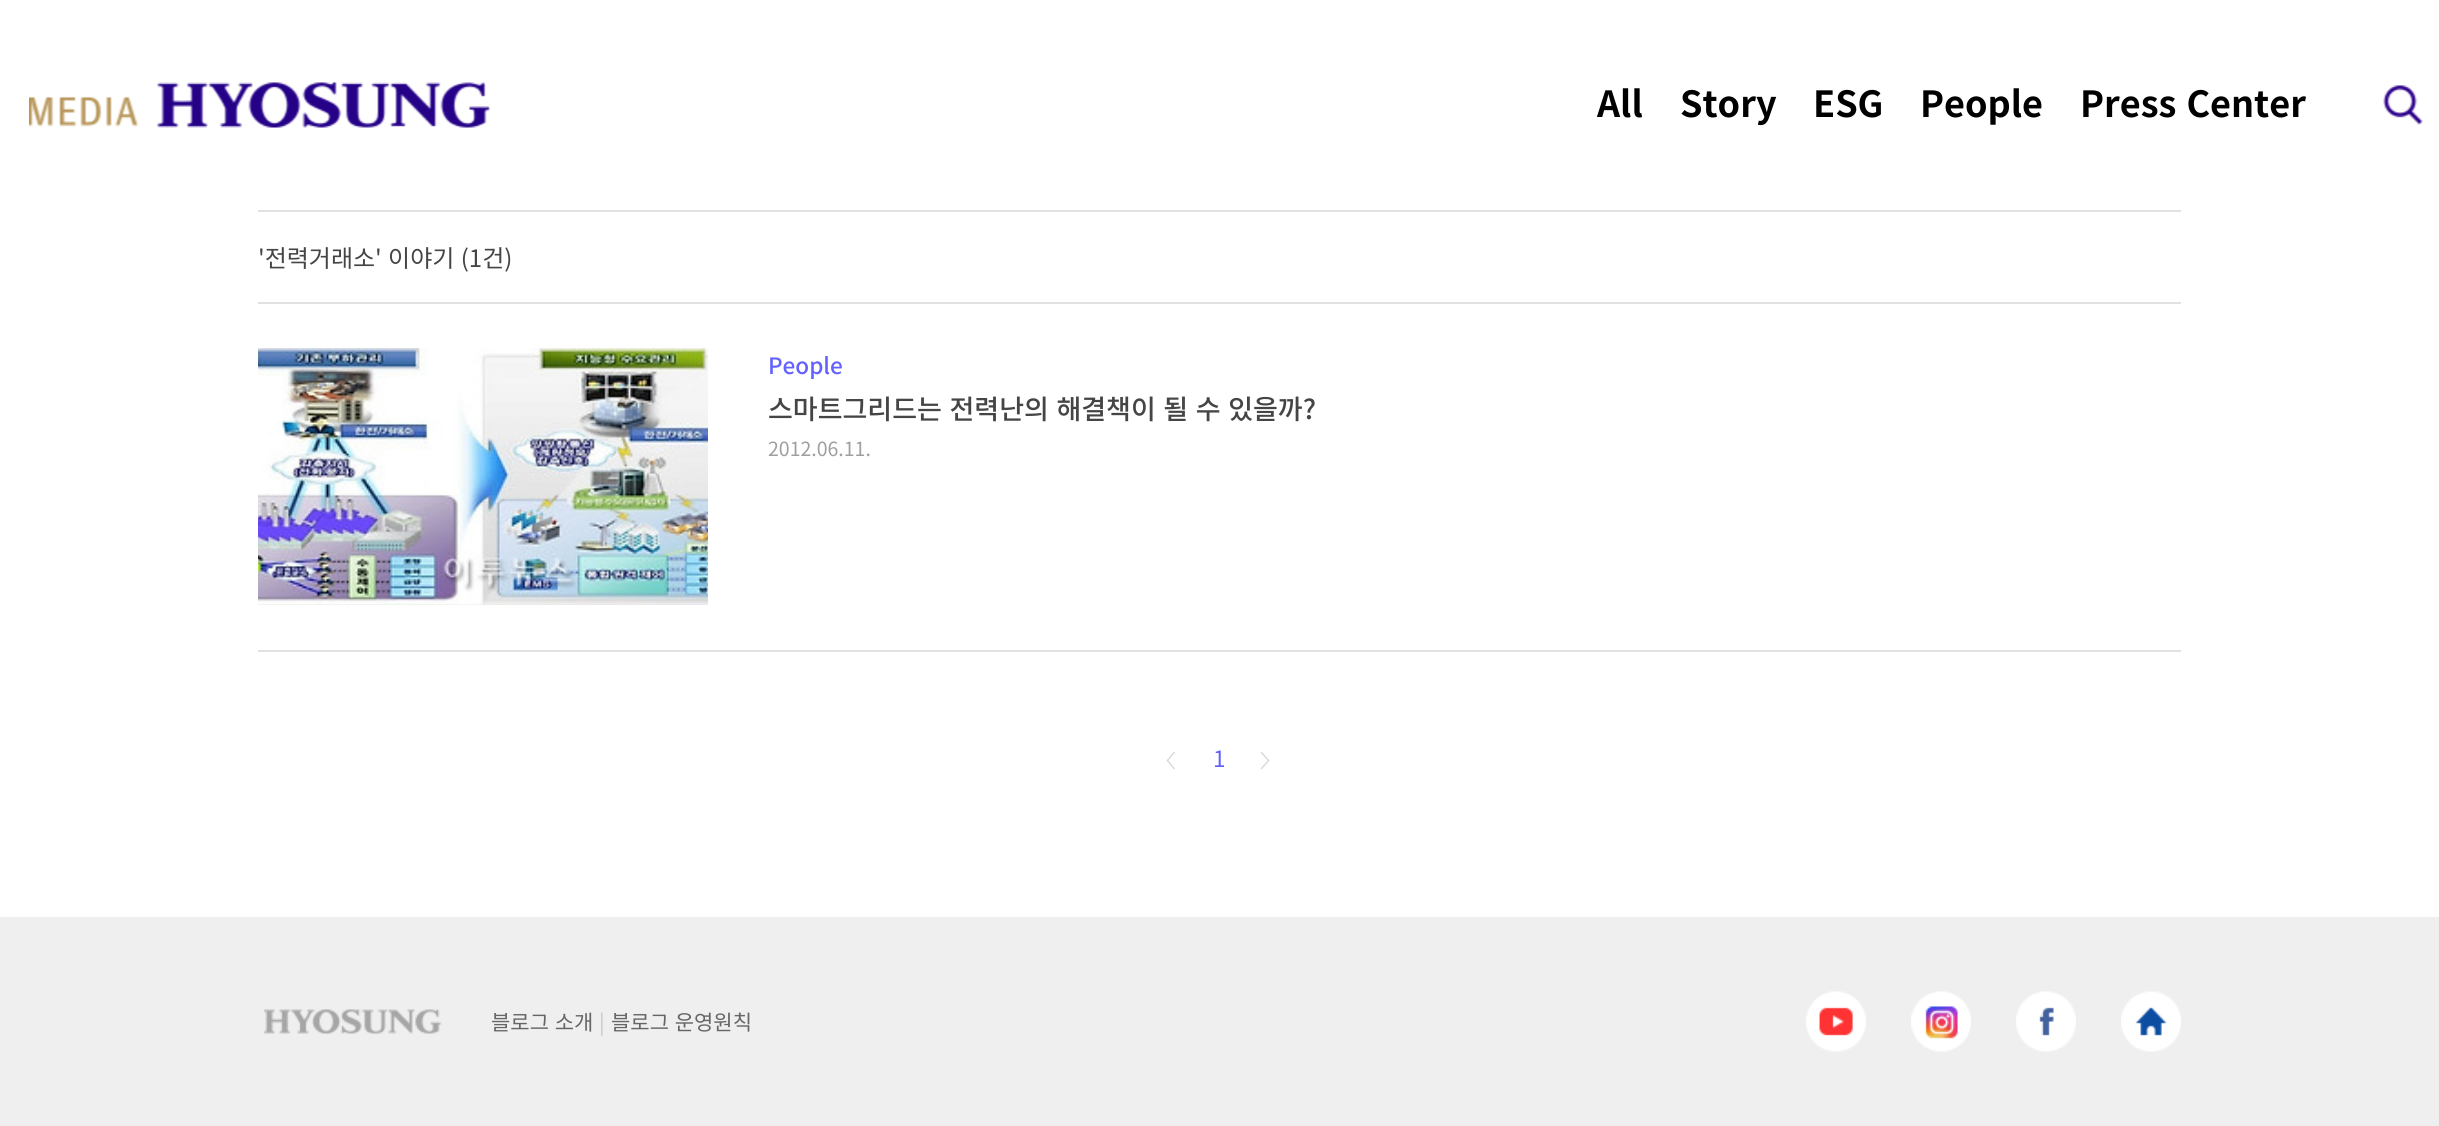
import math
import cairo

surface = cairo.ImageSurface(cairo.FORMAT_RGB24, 2439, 1126)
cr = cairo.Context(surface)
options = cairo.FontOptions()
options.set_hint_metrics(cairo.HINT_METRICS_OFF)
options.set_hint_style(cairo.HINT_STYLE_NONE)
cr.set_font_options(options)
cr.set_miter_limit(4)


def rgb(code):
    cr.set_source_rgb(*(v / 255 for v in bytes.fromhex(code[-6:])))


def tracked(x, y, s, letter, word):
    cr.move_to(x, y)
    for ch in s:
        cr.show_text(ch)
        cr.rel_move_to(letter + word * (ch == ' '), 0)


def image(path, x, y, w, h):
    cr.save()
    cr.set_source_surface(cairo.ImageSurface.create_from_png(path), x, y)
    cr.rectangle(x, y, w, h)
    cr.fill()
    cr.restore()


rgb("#ffffff")
cr.paint()
image("img/1.png", 29, 82, 461, 46)
image("img/2.png", 2383, 85, 40, 40)
for x, y, w, h, color in [
    (258, 210, 1923, 2, "#e1e1e1"),
    (258, 302, 1923, 2, "#e1e1e1"),
    (258, 650, 1923, 2, "#e1e1e1"),
    (258, 604, 450, 1, "#e8e8e8"),
]:
    rgb(color)
    cr.rectangle(x, y, w, h)
    cr.fill()
image("img/3.png", 258, 348, 450, 257)
rgb("#d8d8d8")
cr.new_path()
cr.move_to(1174, 769.5)
cr.line_to(1166.5, 760.5)
cr.line_to(1167.5, 759.5)
cr.line_to(1175, 768.5)
cr.close_path()
cr.fill()
cr.new_path()
cr.move_to(1167.5, 761.5)
cr.line_to(1166.5, 760.5)
cr.line_to(1174, 751.5)
cr.line_to(1175, 752.5)
cr.close_path()
cr.fill()
cr.new_path()
cr.move_to(1261.5, 751.5)
cr.line_to(1269.5, 760.5)
cr.line_to(1268.5, 761.5)
cr.line_to(1260.5, 752.5)
cr.close_path()
cr.fill()
cr.new_path()
cr.move_to(1268.5, 759.5)
cr.line_to(1269.5, 760.5)
cr.line_to(1261.5, 769.5)
cr.line_to(1260.5, 768.5)
cr.close_path()
cr.fill()
rgb("#efefef")
cr.rectangle(0, 917, 2439, 209)
cr.fill()
image("img/4.png", 263, 1009, 179, 25)
image("img/5.png", 1806, 991, 60, 61)
image("img/6.png", 1911, 991, 60, 61)
image("img/7.png", 2016, 991, 60, 61)
image("img/8.png", 2121, 991, 60, 61)
cr.select_font_face("Noto Sans KR", cairo.FONT_SLANT_NORMAL, cairo.FONT_WEIGHT_BOLD)
cr.set_font_size(36)
rgb("#000000")
for x, y, s in [
    (1597, 117, "All"),
    (1680, 117, "Story"),
    (1813, 117, "ESG"),
    (1920, 117, "People"),
]:
    cr.move_to(x, y)
    cr.show_text(s)
tracked(2080, 117, "Press Center", 0, 2)
cr.select_font_face("Noto Sans KR")
cr.set_font_size(24)
rgb("#454545")
tracked(258, 267, "'전력거래소' 이야기 (1건)", 0, 1)
cr.select_font_face("Noto Sans KR Medium")
cr.set_font_size(22.5)
rgb("#6361ff")
cr.move_to(768, 374)
cr.show_text("People")
cr.set_font_size(27)
rgb("#454545")
tracked(768, 419, "스마트그리드는 전력난의 해결책이 될 수 있을까?", 0, 1.5)
cr.select_font_face("Noto Sans KR")
cr.set_font_size(19.5)
rgb("#9f9f9f")
cr.move_to(768, 456)
cr.show_text("2012.06.11.")
cr.set_font_size(22.5)
rgb("#6361ff")
cr.move_to(1213, 767)
cr.show_text("1")
cr.set_font_size(21)
rgb("#666666")
tracked(491, 1030, "블로그 소개", 0, 1)
rgb("#c8c8c8")
cr.move_to(599, 1030)
cr.show_text("|")
rgb("#666666")
tracked(611, 1030, "블로그 운영원칙", 0, 1)
surface.write_to_png("page.png")
